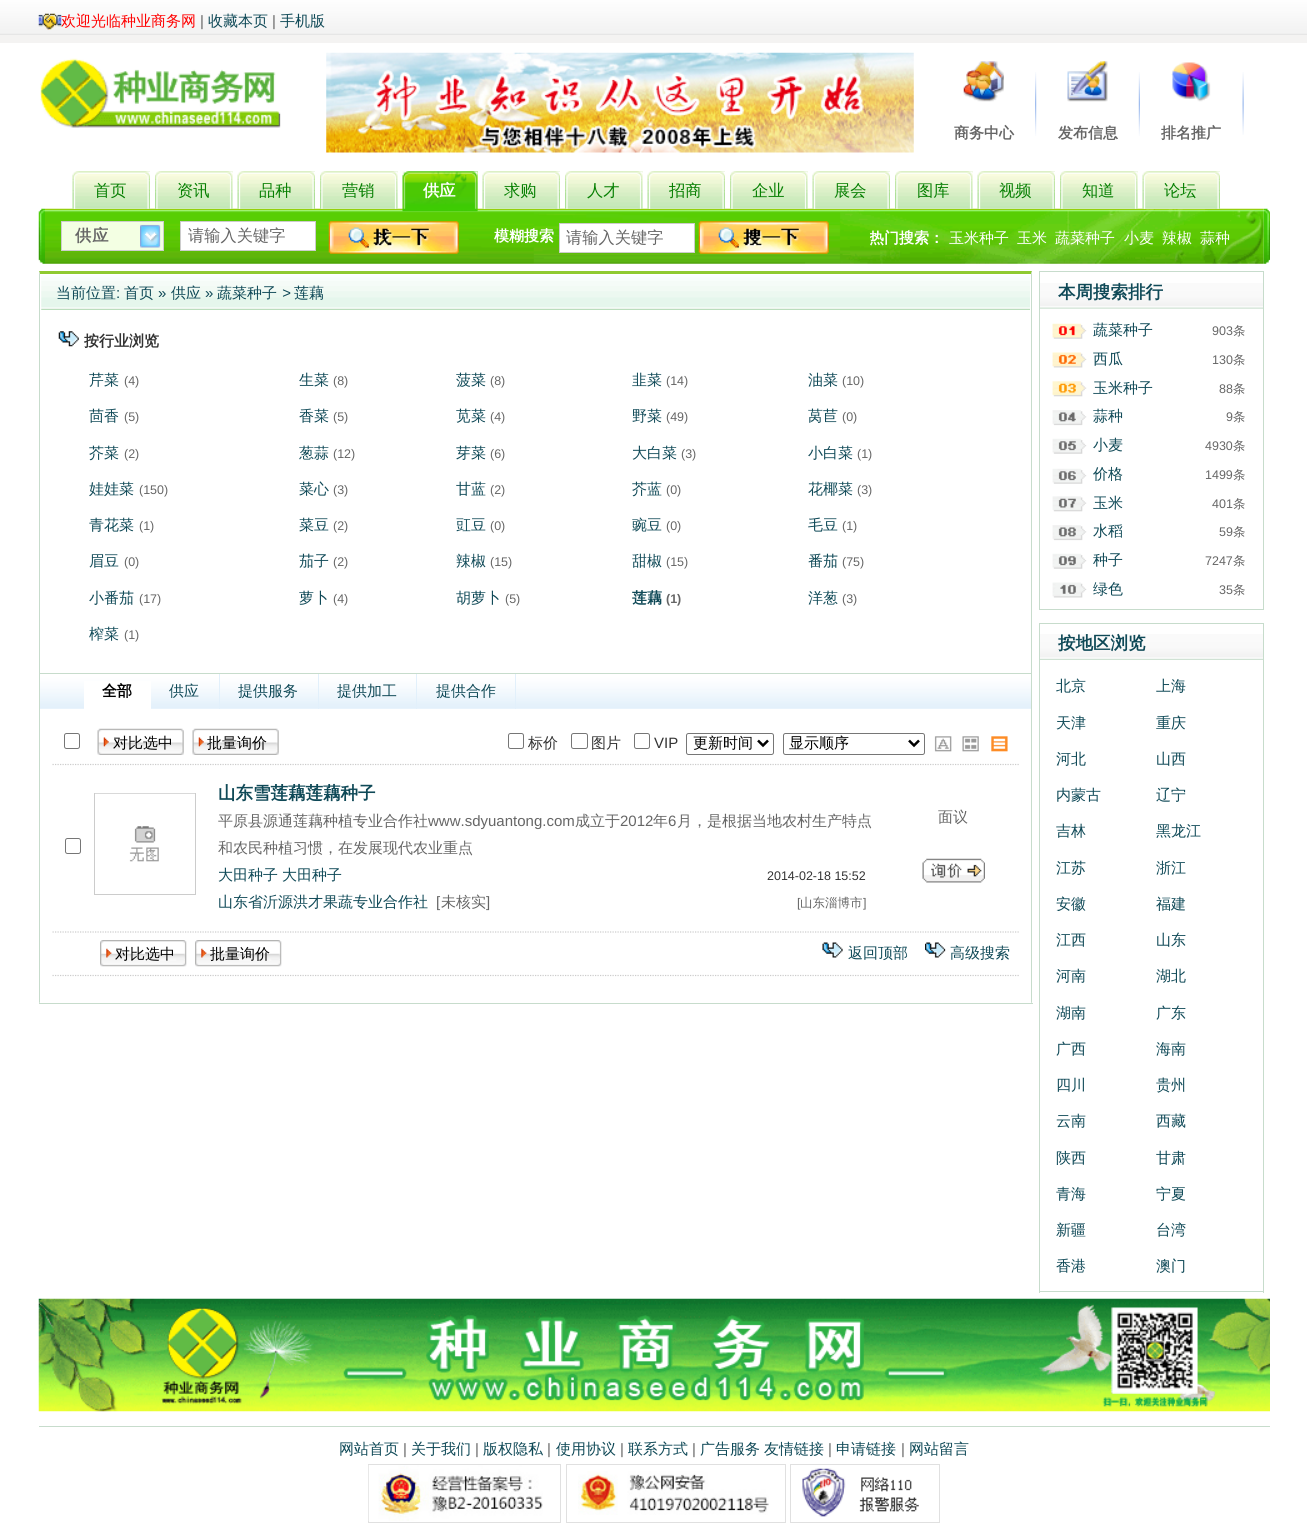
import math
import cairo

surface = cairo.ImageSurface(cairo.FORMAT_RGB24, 1307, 1529)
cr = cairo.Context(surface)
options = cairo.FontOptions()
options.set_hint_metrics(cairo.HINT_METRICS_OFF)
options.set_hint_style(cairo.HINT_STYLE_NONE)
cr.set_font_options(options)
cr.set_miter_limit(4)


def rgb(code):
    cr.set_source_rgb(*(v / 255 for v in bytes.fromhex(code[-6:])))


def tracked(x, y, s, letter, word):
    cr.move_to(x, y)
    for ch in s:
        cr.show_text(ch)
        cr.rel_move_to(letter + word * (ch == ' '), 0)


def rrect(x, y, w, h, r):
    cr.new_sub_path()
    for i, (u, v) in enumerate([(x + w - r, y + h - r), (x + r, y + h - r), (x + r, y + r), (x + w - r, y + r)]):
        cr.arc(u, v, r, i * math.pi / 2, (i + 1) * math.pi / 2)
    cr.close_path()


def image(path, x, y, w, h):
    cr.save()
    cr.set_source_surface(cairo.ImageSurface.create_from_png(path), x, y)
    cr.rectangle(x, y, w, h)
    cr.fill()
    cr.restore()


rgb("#ffffff")
cr.paint()
rgb("#f4f3f2")
cr.rectangle(0, 35, 1307, 8)
cr.fill()
image("img/1.png", 0, 0, 1307, 35)
image("img/2.png", 38, 13, 24, 17)
image("img/3.png", 40, 58, 241, 70)
image("img/4.png", 326, 52, 588, 101)
image("img/5.png", 1035, 72, 2, 64)
image("img/6.png", 963, 61, 41, 41)
image("img/7.png", 1138, 72, 2, 64)
image("img/8.png", 1067, 61, 41, 41)
image("img/9.png", 1242, 72, 2, 63)
image("img/10.png", 1171, 62, 40, 40)
image("img/11.png", 38, 208, 7, 56)
image("img/12.png", 45, 208, 1219, 56)
image("img/13.png", 72, 171, 78, 38)
image("img/14.png", 145, 171, 5, 38)
image("img/15.png", 155, 171, 78, 38)
image("img/16.png", 227, 171, 6, 38)
image("img/17.png", 237, 171, 78, 38)
image("img/14.png", 310, 171, 5, 38)
image("img/15.png", 320, 171, 78, 38)
image("img/16.png", 392, 171, 6, 38)
image("img/18.png", 402, 171, 76, 41)
image("img/19.png", 472, 171, 6, 40)
image("img/17.png", 482, 171, 78, 38)
image("img/20.png", 555, 171, 5, 38)
image("img/21.png", 565, 171, 78, 38)
image("img/16.png", 637, 171, 6, 38)
image("img/17.png", 647, 171, 78, 38)
image("img/20.png", 720, 171, 5, 38)
image("img/21.png", 730, 171, 78, 38)
image("img/16.png", 802, 171, 6, 38)
image("img/13.png", 812, 171, 78, 38)
image("img/14.png", 885, 171, 5, 38)
image("img/15.png", 895, 171, 78, 38)
image("img/16.png", 967, 171, 6, 38)
image("img/13.png", 977, 171, 78, 38)
image("img/20.png", 1050, 171, 5, 38)
image("img/15.png", 1060, 171, 78, 38)
image("img/16.png", 1132, 171, 6, 38)
image("img/22.png", 1142, 171, 78, 38)
image("img/14.png", 1215, 171, 5, 38)
rgb("#f3ffe3")
cr.rectangle(62, 222, 101, 28)
cr.fill()
image("img/23.png", 140, 224, 21, 24)
cr.rectangle(61.5, 221.5, 102, 29)
rgb("#cccccc")
cr.set_line_width(1)
cr.stroke()
rgb("#ffffff")
cr.rectangle(180.5, 221.5, 135, 29)
cr.fill_preserve()
rgb("#cccccc")
cr.stroke()
image("img/24.png", 328, 221, 131, 33)
rgb("#ffffff")
cr.rectangle(559.5, 223.5, 135, 29)
cr.fill_preserve()
rgb("#cccccc")
cr.stroke()
image("img/25.png", 698, 221, 131, 33)
image("img/26.png", 1263, 208, 7, 56)
rgb("#8fca30")
cr.new_path()
cr.move_to(39, 271)
cr.line_to(1032, 271)
cr.line_to(1031, 274)
cr.line_to(40, 274)
cr.close_path()
cr.fill()
rgb("#c7dccc")
cr.new_path()
cr.move_to(1032, 271)
cr.line_to(1032, 1004)
cr.line_to(1031, 1002)
cr.line_to(1031, 274)
cr.close_path()
cr.fill()
cr.rectangle(39, 1003, 994, 1)
cr.fill()
cr.new_path()
cr.move_to(39, 1004)
cr.line_to(39, 271)
cr.line_to(40, 274)
cr.line_to(40, 1002)
cr.close_path()
cr.fill()
image("img/27.png", 41, 275, 989, 35)
image("img/28.png", 58, 331, 21, 16)
image("img/29.png", 40, 674, 991, 35)
for x, y, w, h, color in [
    (40, 673, 991, 1, "#c7dccc"),
    (84, 681, 67, 28, "#ffffff"),
    (219, 674, 1, 35, "#e2f0fb"),
    (318, 674, 1, 35, "#e2f0fb"),
    (416, 674, 1, 35, "#e2f0fb"),
    (515, 674, 1, 35, "#e2f0fb"),
]:
    rgb(color)
    cr.rectangle(x, y, w, h)
    cr.fill()
cr.new_path()
cr.move_to(52.5, 764.5)
cr.line_to(1019, 764.5)
rgb("#cccccc")
cr.set_line_width(1.2)
cr.set_dash([1.25, 1.25])
cr.stroke()
rrect(64.5, 733.5, 15, 15, 2)
rgb("#767676")
cr.set_line_width(1)
cr.set_dash([])
cr.stroke()
image("img/30.png", 97, 728, 87, 27)
image("img/30.png", 192, 728, 87, 27)
rrect(508.5, 733.5, 15, 15, 2)
cr.stroke()
rrect(571.5, 733.5, 16, 15, 2)
cr.stroke()
rrect(634.5, 733.5, 15, 15, 2)
cr.stroke()
rrect(686.5, 733.5, 87, 21, 2)
cr.stroke()
cr.new_path()
cr.move_to(758, 740.5)
cr.line_to(763, 745.5)
cr.line_to(768, 740.5)
rgb("#000000")
cr.set_line_width(2.5)
cr.stroke()
rrect(783.5, 733.5, 141, 21, 2)
rgb("#767676")
cr.set_line_width(1)
cr.stroke()
cr.new_path()
cr.move_to(909, 740.5)
cr.line_to(914, 745.5)
cr.line_to(919, 740.5)
rgb("#000000")
cr.set_line_width(2.5)
cr.stroke()
image("img/31.png", 934, 736, 18, 16)
image("img/32.png", 962, 736, 17, 16)
image("img/33.png", 991, 736, 17, 16)
cr.new_path()
cr.move_to(52.5, 932)
cr.line_to(1019, 932)
rgb("#cccccc")
cr.set_line_width(1.2)
cr.set_dash([1.25, 1.25])
cr.stroke()
cr.rectangle(94.5, 793.5, 101, 101)
cr.set_line_width(1)
cr.set_dash([])
cr.stroke()
image("img/34.png", 95, 793, 100, 69)
image("img/35.png", 922, 858, 63, 25)
rrect(65.5, 838.5, 15, 15, 2)
rgb("#767676")
cr.stroke()
cr.new_path()
cr.move_to(52.5, 975.5)
cr.line_to(1019, 975.5)
rgb("#cccccc")
cr.set_line_width(1.2)
cr.set_dash([1.25, 1.25])
cr.stroke()
image("img/36.png", 100, 940, 87, 27)
image("img/36.png", 195, 940, 87, 27)
image("img/37.png", 822, 942, 21, 16)
image("img/38.png", 925, 942, 21, 16)
image("img/39.png", 1040, 283, 223, 26)
for x, y, w, h, color in [
    (1039, 271, 225, 1, "#c7dccc"),
    (1263, 271, 1, 339, "#c7dccc"),
    (1039, 271, 1, 38, "#c7dccc"),
    (1039, 609, 225, 1, "#c7dccc"),
    (1039, 309, 1, 301, "#c7dccc"),
]:
    rgb(color)
    cr.rectangle(x, y, w, h)
    cr.fill()
image("img/40.png", 1052, 323, 35, 275)
image("img/41.png", 1040, 634, 223, 26)
for x, y, w, h, color in [
    (1039, 623, 225, 1, "#c7dccc"),
    (1263, 623, 1, 670, "#c7dccc"),
    (1039, 623, 1, 37, "#c7dccc"),
    (1039, 1291, 225, 1, "#c7dccc"),
    (1039, 660, 1, 633, "#c7dccc"),
]:
    rgb(color)
    cr.rectangle(x, y, w, h)
    cr.fill()
image("img/42.png", 38, 1298, 1232, 114)
cr.rectangle(39, 1426, 1231, 1)
cr.fill()
cr.rectangle(368.5, 1464.5, 192, 58)
rgb("#e0e0e0")
cr.set_line_width(1)
cr.set_dash([])
cr.stroke()
cr.rectangle(566.5, 1464.5, 219, 58)
cr.stroke()
cr.rectangle(790.5, 1464.5, 149, 58)
cr.stroke()
image("img/43.png", 368, 1465, 175, 56)
image("img/44.png", 578, 1471, 191, 44)
image("img/45.png", 802, 1468, 117, 49)
cr.select_font_face("WenQuanYi Zen Hei Medium")
cr.set_font_size(15)
rgb("#ff0000")
cr.move_to(61, 26)
cr.show_text("欢迎光临种业商务网")
cr.select_font_face("Liberation Sans")
rgb("#666666")
cr.move_to(200, 26)
cr.show_text("|")
cr.select_font_face("WenQuanYi Zen Hei Medium")
rgb("#0f4957")
cr.move_to(208, 26)
cr.show_text("收藏本页")
cr.select_font_face("Liberation Sans")
rgb("#666666")
cr.move_to(272, 26)
cr.show_text("|")
cr.select_font_face("WenQuanYi Zen Hei Medium")
rgb("#0f4957")
cr.move_to(280, 26)
cr.show_text("手机版")
cr.select_font_face("WenQuanYi Zen Hei", cairo.FONT_SLANT_NORMAL, cairo.FONT_WEIGHT_BOLD)
rgb("#666666")
for x, y, s in [
    (954, 138, "商务中心"),
    (1058, 138, "发布信息"),
    (1161, 138, "排名推广"),
]:
    cr.move_to(x, y)
    cr.show_text(s)
cr.select_font_face("WenQuanYi Zen Hei Medium")
cr.set_font_size(16.25)
rgb("#067f02")
for x, y, s in [
    (94, 196, "首页"),
    (177, 196, "资讯"),
    (259, 196, "品种"),
    (342, 196, "营销"),
]:
    cr.move_to(x, y)
    cr.show_text(s)
cr.select_font_face("WenQuanYi Zen Hei", cairo.FONT_SLANT_NORMAL, cairo.FONT_WEIGHT_BOLD)
rgb("#ffffff")
cr.move_to(423, 196)
cr.show_text("供应")
cr.select_font_face("WenQuanYi Zen Hei Medium")
rgb("#067f02")
for x, y, s in [
    (504, 196, "求购"),
    (587, 196, "人才"),
    (669, 196, "招商"),
    (752, 196, "企业"),
    (834, 196, "展会"),
    (917, 196, "图库"),
    (999, 196, "视频"),
    (1082, 196, "知道"),
    (1164, 196, "论坛"),
]:
    cr.move_to(x, y)
    cr.show_text(s)
cr.select_font_face("WenQuanYi Zen Hei", cairo.FONT_SLANT_NORMAL, cairo.FONT_WEIGHT_BOLD)
rgb("#666666")
tracked(75, 241, "供应", 1, 0)
cr.select_font_face("WenQuanYi Zen Hei Medium")
cr.move_to(188, 241)
cr.show_text("请输入关键字")
cr.select_font_face("WenQuanYi Zen Hei", cairo.FONT_SLANT_NORMAL, cairo.FONT_WEIGHT_BOLD)
cr.set_font_size(15)
rgb("#ffffff")
cr.move_to(494, 241)
cr.show_text("模糊搜索")
cr.select_font_face("WenQuanYi Zen Hei Medium")
cr.set_font_size(16.25)
rgb("#666666")
cr.move_to(566, 243)
cr.show_text("请输入关键字")
cr.save()
cr.rectangle(870, 211, 375, 38)
cr.clip()
cr.select_font_face("WenQuanYi Zen Hei", cairo.FONT_SLANT_NORMAL, cairo.FONT_WEIGHT_BOLD)
cr.set_font_size(15)
rgb("#ffffff")
cr.move_to(869, 243)
cr.show_text("热门搜索：")
cr.restore()
cr.set_font_size(15)
rgb("#ffffff")
for x, y, s in [
    (949, 243, "玉米种子"),
    (1017, 243, "玉米"),
    (1055, 243, "蔬菜种子"),
    (1124, 243, "小麦"),
    (1162, 243, "辣椒"),
    (1200, 243, "蒜种"),
]:
    cr.move_to(x, y)
    cr.show_text(s)
rgb("#0f4957")
cr.move_to(56, 298)
cr.show_text("当前位置")
cr.select_font_face("Liberation Sans")
cr.move_to(116, 298)
cr.show_text(":")
cr.select_font_face("WenQuanYi Zen Hei Medium")
cr.move_to(124, 298)
cr.show_text("首页")
cr.select_font_face("Liberation Sans")
cr.move_to(158, 298)
cr.show_text("»")
cr.select_font_face("WenQuanYi Zen Hei Medium")
cr.move_to(171, 298)
cr.show_text("供应")
cr.select_font_face("Liberation Sans")
cr.move_to(205, 298)
cr.show_text("»")
cr.select_font_face("WenQuanYi Zen Hei Medium")
cr.move_to(217, 298)
cr.show_text("蔬菜种子")
cr.select_font_face("Liberation Sans", cairo.FONT_SLANT_ITALIC)
cr.move_to(282, 298)
cr.show_text(">")
cr.select_font_face("WenQuanYi Zen Hei Medium")
cr.move_to(294, 298)
cr.show_text("莲藕")
cr.select_font_face("WenQuanYi Zen Hei", cairo.FONT_SLANT_NORMAL, cairo.FONT_WEIGHT_BOLD)
rgb("#333333")
cr.move_to(84, 346)
cr.show_text("按行业浏览")
cr.select_font_face("WenQuanYi Zen Hei Medium")
rgb("#0f4957")
cr.move_to(89, 385)
cr.show_text("芹菜")
cr.select_font_face("Liberation Sans")
cr.set_font_size(12.5)
rgb("#666666")
cr.move_to(124, 385)
cr.show_text("(4)")
cr.select_font_face("WenQuanYi Zen Hei Medium")
cr.set_font_size(15)
rgb("#0f4957")
cr.move_to(299, 385)
cr.show_text("生菜")
cr.select_font_face("Liberation Sans")
cr.set_font_size(12.5)
rgb("#666666")
cr.move_to(333, 385)
cr.show_text("(8)")
cr.select_font_face("WenQuanYi Zen Hei Medium")
cr.set_font_size(15)
rgb("#0f4957")
cr.move_to(456, 385)
cr.show_text("菠菜")
cr.select_font_face("Liberation Sans")
cr.set_font_size(12.5)
rgb("#666666")
cr.move_to(490, 385)
cr.show_text("(8)")
cr.select_font_face("WenQuanYi Zen Hei Medium")
cr.set_font_size(15)
rgb("#0f4957")
cr.move_to(632, 385)
cr.show_text("韭菜")
cr.select_font_face("Liberation Sans")
cr.set_font_size(12.5)
rgb("#666666")
cr.move_to(666, 385)
cr.show_text("(14)")
cr.select_font_face("WenQuanYi Zen Hei Medium")
cr.set_font_size(15)
rgb("#0f4957")
cr.move_to(808, 385)
cr.show_text("油菜")
cr.select_font_face("Liberation Sans")
cr.set_font_size(12.5)
rgb("#666666")
cr.move_to(842, 385)
cr.show_text("(10)")
cr.select_font_face("WenQuanYi Zen Hei Medium")
cr.set_font_size(15)
rgb("#0f4957")
cr.move_to(89, 421)
cr.show_text("茴香")
cr.select_font_face("Liberation Sans")
cr.set_font_size(12.5)
rgb("#666666")
cr.move_to(124, 421)
cr.show_text("(5)")
cr.select_font_face("WenQuanYi Zen Hei Medium")
cr.set_font_size(15)
rgb("#0f4957")
cr.move_to(299, 421)
cr.show_text("香菜")
cr.select_font_face("Liberation Sans")
cr.set_font_size(12.5)
rgb("#666666")
cr.move_to(333, 421)
cr.show_text("(5)")
cr.select_font_face("WenQuanYi Zen Hei Medium")
cr.set_font_size(15)
rgb("#0f4957")
cr.move_to(456, 421)
cr.show_text("苋菜")
cr.select_font_face("Liberation Sans")
cr.set_font_size(12.5)
rgb("#666666")
cr.move_to(490, 421)
cr.show_text("(4)")
cr.select_font_face("WenQuanYi Zen Hei Medium")
cr.set_font_size(15)
rgb("#0f4957")
cr.move_to(632, 421)
cr.show_text("野菜")
cr.select_font_face("Liberation Sans")
cr.set_font_size(12.5)
rgb("#666666")
cr.move_to(666, 421)
cr.show_text("(49)")
cr.select_font_face("WenQuanYi Zen Hei Medium")
cr.set_font_size(15)
rgb("#0f4957")
cr.move_to(808, 421)
cr.show_text("莴苣")
cr.select_font_face("Liberation Sans")
cr.set_font_size(12.5)
rgb("#666666")
cr.move_to(842, 421)
cr.show_text("(0)")
cr.select_font_face("WenQuanYi Zen Hei Medium")
cr.set_font_size(15)
rgb("#0f4957")
cr.move_to(89, 458)
cr.show_text("芥菜")
cr.select_font_face("Liberation Sans")
cr.set_font_size(12.5)
rgb("#666666")
cr.move_to(124, 458)
cr.show_text("(2)")
cr.select_font_face("WenQuanYi Zen Hei Medium")
cr.set_font_size(15)
rgb("#0f4957")
cr.move_to(299, 458)
cr.show_text("葱蒜")
cr.select_font_face("Liberation Sans")
cr.set_font_size(12.5)
rgb("#666666")
cr.move_to(333, 458)
cr.show_text("(12)")
cr.select_font_face("WenQuanYi Zen Hei Medium")
cr.set_font_size(15)
rgb("#0f4957")
cr.move_to(456, 458)
cr.show_text("芽菜")
cr.select_font_face("Liberation Sans")
cr.set_font_size(12.5)
rgb("#666666")
cr.move_to(490, 458)
cr.show_text("(6)")
cr.select_font_face("WenQuanYi Zen Hei Medium")
cr.set_font_size(15)
rgb("#0f4957")
cr.move_to(632, 458)
cr.show_text("大白菜")
cr.select_font_face("Liberation Sans")
cr.set_font_size(12.5)
rgb("#666666")
cr.move_to(681, 458)
cr.show_text("(3)")
cr.select_font_face("WenQuanYi Zen Hei Medium")
cr.set_font_size(15)
rgb("#0f4957")
cr.move_to(808, 458)
cr.show_text("小白菜")
cr.select_font_face("Liberation Sans")
cr.set_font_size(12.5)
rgb("#666666")
cr.move_to(857, 458)
cr.show_text("(1)")
cr.select_font_face("WenQuanYi Zen Hei Medium")
cr.set_font_size(15)
rgb("#0f4957")
cr.move_to(89, 494)
cr.show_text("娃娃菜")
cr.select_font_face("Liberation Sans")
cr.set_font_size(12.5)
rgb("#666666")
cr.move_to(139, 494)
cr.show_text("(150)")
cr.select_font_face("WenQuanYi Zen Hei Medium")
cr.set_font_size(15)
rgb("#0f4957")
cr.move_to(299, 494)
cr.show_text("菜心")
cr.select_font_face("Liberation Sans")
cr.set_font_size(12.5)
rgb("#666666")
cr.move_to(333, 494)
cr.show_text("(3)")
cr.select_font_face("WenQuanYi Zen Hei Medium")
cr.set_font_size(15)
rgb("#0f4957")
cr.move_to(456, 494)
cr.show_text("甘蓝")
cr.select_font_face("Liberation Sans")
cr.set_font_size(12.5)
rgb("#666666")
cr.move_to(490, 494)
cr.show_text("(2)")
cr.select_font_face("WenQuanYi Zen Hei Medium")
cr.set_font_size(15)
rgb("#0f4957")
cr.move_to(632, 494)
cr.show_text("芥蓝")
cr.select_font_face("Liberation Sans")
cr.set_font_size(12.5)
rgb("#666666")
cr.move_to(666, 494)
cr.show_text("(0)")
cr.select_font_face("WenQuanYi Zen Hei Medium")
cr.set_font_size(15)
rgb("#0f4957")
cr.move_to(808, 494)
cr.show_text("花椰菜")
cr.select_font_face("Liberation Sans")
cr.set_font_size(12.5)
rgb("#666666")
cr.move_to(857, 494)
cr.show_text("(3)")
cr.select_font_face("WenQuanYi Zen Hei Medium")
cr.set_font_size(15)
rgb("#0f4957")
cr.move_to(89, 530)
cr.show_text("青花菜")
cr.select_font_face("Liberation Sans")
cr.set_font_size(12.5)
rgb("#666666")
cr.move_to(139, 530)
cr.show_text("(1)")
cr.select_font_face("WenQuanYi Zen Hei Medium")
cr.set_font_size(15)
rgb("#0f4957")
cr.move_to(299, 530)
cr.show_text("菜豆")
cr.select_font_face("Liberation Sans")
cr.set_font_size(12.5)
rgb("#666666")
cr.move_to(333, 530)
cr.show_text("(2)")
cr.select_font_face("WenQuanYi Zen Hei Medium")
cr.set_font_size(15)
rgb("#0f4957")
cr.move_to(456, 530)
cr.show_text("豇豆")
cr.select_font_face("Liberation Sans")
cr.set_font_size(12.5)
rgb("#666666")
cr.move_to(490, 530)
cr.show_text("(0)")
cr.select_font_face("WenQuanYi Zen Hei Medium")
cr.set_font_size(15)
rgb("#0f4957")
cr.move_to(632, 530)
cr.show_text("豌豆")
cr.select_font_face("Liberation Sans")
cr.set_font_size(12.5)
rgb("#666666")
cr.move_to(666, 530)
cr.show_text("(0)")
cr.select_font_face("WenQuanYi Zen Hei Medium")
cr.set_font_size(15)
rgb("#0f4957")
cr.move_to(808, 530)
cr.show_text("毛豆")
cr.select_font_face("Liberation Sans")
cr.set_font_size(12.5)
rgb("#666666")
cr.move_to(842, 530)
cr.show_text("(1)")
cr.select_font_face("WenQuanYi Zen Hei Medium")
cr.set_font_size(15)
rgb("#0f4957")
cr.move_to(89, 566)
cr.show_text("眉豆")
cr.select_font_face("Liberation Sans")
cr.set_font_size(12.5)
rgb("#666666")
cr.move_to(124, 566)
cr.show_text("(0)")
cr.select_font_face("WenQuanYi Zen Hei Medium")
cr.set_font_size(15)
rgb("#0f4957")
cr.move_to(299, 566)
cr.show_text("茄子")
cr.select_font_face("Liberation Sans")
cr.set_font_size(12.5)
rgb("#666666")
cr.move_to(333, 566)
cr.show_text("(2)")
cr.select_font_face("WenQuanYi Zen Hei Medium")
cr.set_font_size(15)
rgb("#0f4957")
cr.move_to(456, 566)
cr.show_text("辣椒")
cr.select_font_face("Liberation Sans")
cr.set_font_size(12.5)
rgb("#666666")
cr.move_to(490, 566)
cr.show_text("(15)")
cr.select_font_face("WenQuanYi Zen Hei Medium")
cr.set_font_size(15)
rgb("#0f4957")
cr.move_to(632, 566)
cr.show_text("甜椒")
cr.select_font_face("Liberation Sans")
cr.set_font_size(12.5)
rgb("#666666")
cr.move_to(666, 566)
cr.show_text("(15)")
cr.select_font_face("WenQuanYi Zen Hei Medium")
cr.set_font_size(15)
rgb("#0f4957")
cr.move_to(808, 566)
cr.show_text("番茄")
cr.select_font_face("Liberation Sans")
cr.set_font_size(12.5)
rgb("#666666")
cr.move_to(842, 566)
cr.show_text("(75)")
cr.select_font_face("WenQuanYi Zen Hei Medium")
cr.set_font_size(15)
rgb("#0f4957")
cr.move_to(89, 603)
cr.show_text("小番茄")
cr.select_font_face("Liberation Sans")
cr.set_font_size(12.5)
rgb("#666666")
cr.move_to(139, 603)
cr.show_text("(17)")
cr.select_font_face("WenQuanYi Zen Hei Medium")
cr.set_font_size(15)
rgb("#0f4957")
cr.move_to(299, 603)
cr.show_text("萝卜")
cr.select_font_face("Liberation Sans")
cr.set_font_size(12.5)
rgb("#666666")
cr.move_to(333, 603)
cr.show_text("(4)")
cr.select_font_face("WenQuanYi Zen Hei Medium")
cr.set_font_size(15)
rgb("#0f4957")
cr.move_to(456, 603)
cr.show_text("胡萝卜")
cr.select_font_face("Liberation Sans")
cr.set_font_size(12.5)
rgb("#666666")
cr.move_to(505, 603)
cr.show_text("(5)")
cr.select_font_face("WenQuanYi Zen Hei", cairo.FONT_SLANT_NORMAL, cairo.FONT_WEIGHT_BOLD)
cr.set_font_size(15)
rgb("#0f4957")
cr.move_to(632, 603)
cr.show_text("莲藕")
cr.select_font_face("Liberation Sans", cairo.FONT_SLANT_NORMAL, cairo.FONT_WEIGHT_BOLD)
cr.set_font_size(12.5)
rgb("#666666")
cr.move_to(666, 603)
cr.show_text("(1)")
cr.select_font_face("WenQuanYi Zen Hei Medium")
cr.set_font_size(15)
rgb("#0f4957")
cr.move_to(808, 603)
cr.show_text("洋葱")
cr.select_font_face("Liberation Sans")
cr.set_font_size(12.5)
rgb("#666666")
cr.move_to(842, 603)
cr.show_text("(3)")
cr.select_font_face("WenQuanYi Zen Hei Medium")
cr.set_font_size(15)
rgb("#0f4957")
cr.move_to(89, 639)
cr.show_text("榨菜")
cr.select_font_face("Liberation Sans")
cr.set_font_size(12.5)
rgb("#666666")
cr.move_to(124, 639)
cr.show_text("(1)")
cr.select_font_face("WenQuanYi Zen Hei", cairo.FONT_SLANT_NORMAL, cairo.FONT_WEIGHT_BOLD)
cr.set_font_size(15)
rgb("#000000")
cr.move_to(102, 696)
cr.show_text("全部")
cr.select_font_face("WenQuanYi Zen Hei Medium")
rgb("#0f4957")
for x, y, s in [
    (169, 696, "供应"),
    (238, 696, "提供服务"),
    (337, 696, "提供加工"),
    (436, 696, "提供合作"),
]:
    cr.move_to(x, y)
    cr.show_text(s)
rgb("#000000")
cr.move_to(113, 748)
cr.show_text("对比选中")
cr.move_to(207, 748)
cr.show_text("批量询价")
rgb("#333333")
cr.move_to(528, 748)
cr.show_text("标价")
cr.move_to(591, 748)
cr.show_text("图片")
cr.select_font_face("Liberation Sans")
cr.move_to(654, 748)
cr.show_text("VIP")
cr.select_font_face("WenQuanYi Zen Hei Medium")
rgb("#000000")
cr.move_to(693, 748)
cr.show_text("更新时间")
cr.move_to(789, 748)
cr.show_text("显示顺序")
cr.select_font_face("WenQuanYi Zen Hei", cairo.FONT_SLANT_NORMAL, cairo.FONT_WEIGHT_BOLD)
cr.set_font_size(17.5)
rgb("#0f4957")
cr.move_to(218, 799)
cr.show_text("山东雪莲藕莲藕种子")
cr.select_font_face("WenQuanYi Zen Hei Medium")
cr.set_font_size(15)
rgb("#666666")
cr.move_to(218, 826)
cr.show_text("平原县源通莲藕种植专业合作社")
cr.select_font_face("Liberation Sans")
cr.move_to(428, 826)
cr.show_text("www.sdyuantong.com")
cr.select_font_face("WenQuanYi Zen Hei Medium")
cr.move_to(575, 826)
cr.show_text("成立于")
cr.select_font_face("Liberation Sans")
cr.move_to(620, 826)
cr.show_text("2012")
cr.select_font_face("WenQuanYi Zen Hei Medium")
cr.move_to(653, 826)
cr.show_text("年")
cr.select_font_face("Liberation Sans")
cr.move_to(668, 826)
cr.show_text("6")
cr.select_font_face("WenQuanYi Zen Hei Medium")
cr.move_to(677, 826)
cr.show_text("月，是根据当地农村生产特点")
cr.move_to(218, 853)
cr.show_text("和农民种植习惯，在发展现代农业重点")
rgb("#0f4957")
cr.move_to(218, 880)
cr.show_text("大田种子")
cr.move_to(282, 880)
cr.show_text("大田种子")
cr.select_font_face("Liberation Sans")
cr.set_font_size(12.5)
rgb("#333333")
cr.move_to(767, 880)
cr.show_text("2014-02-18 15:52")
cr.select_font_face("WenQuanYi Zen Hei Medium")
cr.set_font_size(15)
rgb("#0f4957")
cr.move_to(218, 907)
cr.show_text("山东省沂源洪才果蔬专业合作社")
cr.select_font_face("Liberation Sans")
rgb("#666666")
cr.move_to(436, 907)
cr.show_text("[")
cr.select_font_face("WenQuanYi Zen Hei Medium")
cr.move_to(441, 907)
cr.show_text("未核实")
cr.select_font_face("Liberation Sans")
cr.move_to(486, 907)
cr.show_text("]")
cr.set_font_size(12.5)
cr.move_to(797, 907)
cr.show_text("[")
cr.select_font_face("WenQuanYi Zen Hei Medium")
cr.move_to(800, 907)
cr.show_text("山东淄博市")
cr.select_font_face("Liberation Sans")
cr.move_to(863, 907)
cr.show_text("]")
cr.select_font_face("WenQuanYi Zen Hei Medium")
cr.set_font_size(15)
cr.move_to(938, 822)
cr.show_text("面议")
rgb("#000000")
cr.move_to(115, 959)
cr.show_text("对比选中")
cr.move_to(210, 959)
cr.show_text("批量询价")
rgb("#0f4957")
cr.move_to(848, 958)
cr.show_text("返回顶部")
cr.move_to(950, 958)
cr.show_text("高级搜索")
cr.select_font_face("WenQuanYi Zen Hei", cairo.FONT_SLANT_NORMAL, cairo.FONT_WEIGHT_BOLD)
cr.set_font_size(17.5)
cr.move_to(1058, 298)
cr.show_text("本周搜索排行")
cr.select_font_face("WenQuanYi Zen Hei Medium")
cr.set_font_size(15)
cr.move_to(1093, 335)
cr.show_text("蔬菜种子")
cr.select_font_face("Liberation Sans")
cr.set_font_size(12.5)
rgb("#666666")
cr.move_to(1212, 335)
cr.show_text("903")
cr.select_font_face("WenQuanYi Zen Hei Medium")
cr.move_to(1233, 335)
cr.show_text("条")
cr.set_font_size(15)
rgb("#0f4957")
cr.move_to(1093, 364)
cr.show_text("西瓜")
cr.select_font_face("Liberation Sans")
cr.set_font_size(12.5)
rgb("#666666")
cr.move_to(1212, 364)
cr.show_text("130")
cr.select_font_face("WenQuanYi Zen Hei Medium")
cr.move_to(1233, 364)
cr.show_text("条")
cr.set_font_size(15)
rgb("#0f4957")
cr.move_to(1093, 393)
cr.show_text("玉米种子")
cr.select_font_face("Liberation Sans")
cr.set_font_size(12.5)
rgb("#666666")
cr.move_to(1219, 393)
cr.show_text("88")
cr.select_font_face("WenQuanYi Zen Hei Medium")
cr.move_to(1233, 393)
cr.show_text("条")
cr.set_font_size(15)
rgb("#0f4957")
cr.move_to(1093, 421)
cr.show_text("蒜种")
cr.select_font_face("Liberation Sans")
cr.set_font_size(12.5)
rgb("#666666")
cr.move_to(1226, 421)
cr.show_text("9")
cr.select_font_face("WenQuanYi Zen Hei Medium")
cr.move_to(1233, 421)
cr.show_text("条")
cr.set_font_size(15)
rgb("#0f4957")
cr.move_to(1093, 450)
cr.show_text("小麦")
cr.select_font_face("Liberation Sans")
cr.set_font_size(12.5)
rgb("#666666")
cr.move_to(1205, 450)
cr.show_text("4930")
cr.select_font_face("WenQuanYi Zen Hei Medium")
cr.move_to(1233, 450)
cr.show_text("条")
cr.set_font_size(15)
rgb("#0f4957")
cr.move_to(1093, 479)
cr.show_text("价格")
cr.select_font_face("Liberation Sans")
cr.set_font_size(12.5)
rgb("#666666")
cr.move_to(1205, 479)
cr.show_text("1499")
cr.select_font_face("WenQuanYi Zen Hei Medium")
cr.move_to(1233, 479)
cr.show_text("条")
cr.set_font_size(15)
rgb("#0f4957")
cr.move_to(1093, 508)
cr.show_text("玉米")
cr.select_font_face("Liberation Sans")
cr.set_font_size(12.5)
rgb("#666666")
cr.move_to(1212, 508)
cr.show_text("401")
cr.select_font_face("WenQuanYi Zen Hei Medium")
cr.move_to(1233, 508)
cr.show_text("条")
cr.set_font_size(15)
rgb("#0f4957")
cr.move_to(1093, 536)
cr.show_text("水稻")
cr.select_font_face("Liberation Sans")
cr.set_font_size(12.5)
rgb("#666666")
cr.move_to(1219, 536)
cr.show_text("59")
cr.select_font_face("WenQuanYi Zen Hei Medium")
cr.move_to(1233, 536)
cr.show_text("条")
cr.set_font_size(15)
rgb("#0f4957")
cr.move_to(1093, 565)
cr.show_text("种子")
cr.select_font_face("Liberation Sans")
cr.set_font_size(12.5)
rgb("#666666")
cr.move_to(1205, 565)
cr.show_text("7247")
cr.select_font_face("WenQuanYi Zen Hei Medium")
cr.move_to(1233, 565)
cr.show_text("条")
cr.set_font_size(15)
rgb("#0f4957")
cr.move_to(1093, 594)
cr.show_text("绿色")
cr.select_font_face("Liberation Sans")
cr.set_font_size(12.5)
rgb("#666666")
cr.move_to(1219, 594)
cr.show_text("35")
cr.select_font_face("WenQuanYi Zen Hei Medium")
cr.move_to(1233, 594)
cr.show_text("条")
cr.select_font_face("WenQuanYi Zen Hei", cairo.FONT_SLANT_NORMAL, cairo.FONT_WEIGHT_BOLD)
cr.set_font_size(17.5)
rgb("#0f4957")
cr.move_to(1058, 649)
cr.show_text("按地区浏览")
cr.select_font_face("WenQuanYi Zen Hei Medium")
cr.set_font_size(15)
for x, y, s in [
    (1056, 691, "北京"),
    (1156, 691, "上海"),
    (1056, 728, "天津"),
    (1156, 728, "重庆"),
    (1056, 764, "河北"),
    (1156, 764, "山西"),
    (1056, 800, "内蒙古"),
    (1156, 800, "辽宁"),
    (1056, 836, "吉林"),
    (1156, 836, "黑龙江"),
    (1056, 873, "江苏"),
    (1156, 873, "浙江"),
    (1056, 909, "安徽"),
    (1156, 909, "福建"),
    (1056, 945, "江西"),
    (1156, 945, "山东"),
    (1056, 981, "河南"),
    (1156, 981, "湖北"),
    (1056, 1018, "湖南"),
    (1156, 1018, "广东"),
    (1056, 1054, "广西"),
    (1156, 1054, "海南"),
    (1056, 1090, "四川"),
    (1156, 1090, "贵州"),
    (1056, 1126, "云南"),
    (1156, 1126, "西藏"),
    (1056, 1163, "陕西"),
    (1156, 1163, "甘肃"),
    (1056, 1199, "青海"),
    (1156, 1199, "宁夏"),
    (1056, 1235, "新疆"),
    (1156, 1235, "台湾"),
    (1056, 1271, "香港"),
    (1156, 1271, "澳门"),
    (339, 1454, "网站首页"),
]:
    cr.move_to(x, y)
    cr.show_text(s)
cr.select_font_face("Liberation Sans")
rgb("#666666")
cr.move_to(403, 1454)
cr.show_text("|")
cr.select_font_face("WenQuanYi Zen Hei Medium")
rgb("#0f4957")
cr.move_to(411, 1454)
cr.show_text("关于我们")
cr.select_font_face("Liberation Sans")
rgb("#666666")
cr.move_to(475, 1454)
cr.show_text("|")
cr.select_font_face("WenQuanYi Zen Hei Medium")
rgb("#0f4957")
cr.move_to(483, 1454)
cr.show_text("版权隐私")
cr.select_font_face("Liberation Sans")
rgb("#666666")
cr.move_to(547, 1454)
cr.show_text("|")
cr.select_font_face("WenQuanYi Zen Hei Medium")
rgb("#0f4957")
cr.move_to(556, 1454)
cr.show_text("使用协议")
cr.select_font_face("Liberation Sans")
rgb("#666666")
cr.move_to(620, 1454)
cr.show_text("|")
cr.select_font_face("WenQuanYi Zen Hei Medium")
rgb("#0f4957")
cr.move_to(628, 1454)
cr.show_text("联系方式")
cr.select_font_face("Liberation Sans")
rgb("#666666")
cr.move_to(692, 1454)
cr.show_text("|")
cr.select_font_face("WenQuanYi Zen Hei Medium")
rgb("#0f4957")
cr.move_to(700, 1454)
cr.show_text("广告服务")
cr.move_to(764, 1454)
cr.show_text("友情链接")
cr.select_font_face("Liberation Sans")
rgb("#666666")
cr.move_to(828, 1454)
cr.show_text("|")
cr.select_font_face("WenQuanYi Zen Hei Medium")
rgb("#0f4957")
cr.move_to(836, 1454)
cr.show_text("申请链接")
cr.select_font_face("Liberation Sans")
rgb("#666666")
cr.move_to(901, 1454)
cr.show_text("|")
cr.select_font_face("WenQuanYi Zen Hei Medium")
rgb("#0f4957")
cr.move_to(909, 1454)
cr.show_text("网站留言")
surface.write_to_png("page.png")
